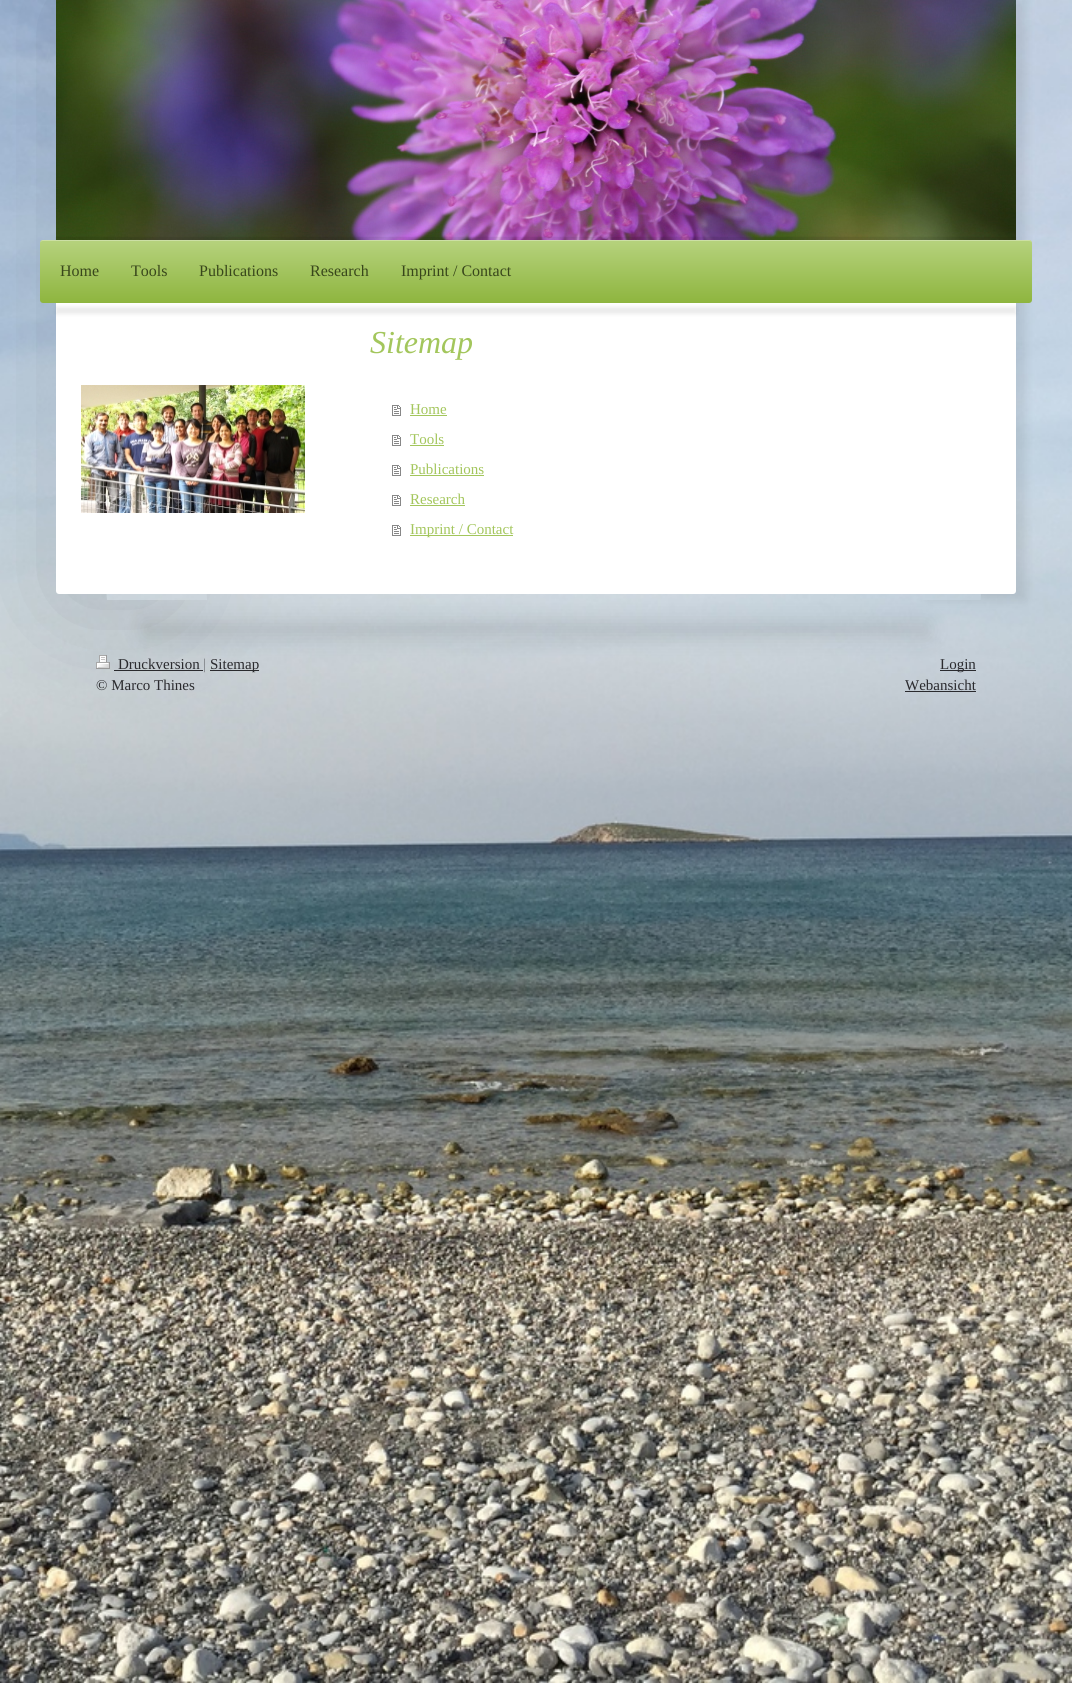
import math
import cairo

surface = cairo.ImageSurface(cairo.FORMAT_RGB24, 1072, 1683)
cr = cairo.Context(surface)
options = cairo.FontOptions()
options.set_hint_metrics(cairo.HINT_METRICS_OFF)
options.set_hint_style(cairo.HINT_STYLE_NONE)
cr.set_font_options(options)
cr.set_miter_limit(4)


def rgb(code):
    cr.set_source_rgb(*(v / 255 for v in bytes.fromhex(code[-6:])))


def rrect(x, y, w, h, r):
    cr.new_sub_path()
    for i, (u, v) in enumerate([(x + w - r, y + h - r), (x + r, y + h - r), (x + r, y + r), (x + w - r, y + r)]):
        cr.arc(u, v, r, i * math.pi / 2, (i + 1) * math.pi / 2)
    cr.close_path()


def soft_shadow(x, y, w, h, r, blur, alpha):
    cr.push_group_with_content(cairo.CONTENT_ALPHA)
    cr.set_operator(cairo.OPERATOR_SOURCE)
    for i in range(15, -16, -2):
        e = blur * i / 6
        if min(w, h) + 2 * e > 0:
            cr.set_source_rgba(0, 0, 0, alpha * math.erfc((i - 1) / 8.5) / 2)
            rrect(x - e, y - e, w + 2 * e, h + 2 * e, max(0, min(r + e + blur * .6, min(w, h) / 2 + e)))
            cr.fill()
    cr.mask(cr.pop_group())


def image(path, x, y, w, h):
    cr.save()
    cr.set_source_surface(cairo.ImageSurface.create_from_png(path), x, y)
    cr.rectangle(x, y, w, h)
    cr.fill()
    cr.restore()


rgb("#ffffff")
cr.paint()
image("img/1.png", 0, 0, 1072, 1683)
cr.save()
cr.set_fill_rule(cairo.FILL_RULE_EVEN_ODD)
cr.new_path()
cr.move_to(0, 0)
cr.line_to(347, 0)
cr.line_to(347, 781)
cr.line_to(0, 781)
cr.close_path()
cr.move_to(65, 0)
cr.line_to(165, 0)
cr.line_to(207, 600)
cr.line_to(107, 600)
cr.close_path()
cr.clip()
rgb("#000000")
soft_shadow(66, 0, 100, 600, 0, 60, 0.15)
cr.restore()
cr.save()
cr.set_fill_rule(cairo.FILL_RULE_EVEN_ODD)
cr.new_path()
cr.move_to(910, 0)
cr.line_to(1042, 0)
cr.line_to(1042, 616)
cr.line_to(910, 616)
cr.close_path()
cr.move_to(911.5, 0)
cr.line_to(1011.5, 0)
cr.line_to(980.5, 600)
cr.line_to(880.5, 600)
cr.close_path()
cr.clip()
rgb("#000000")
soft_shadow(926, 0, 100, 600, 0, 5, 0.08)
cr.restore()
image("img/2.png", 56, 0, 960, 240)
rgb("#000000")
soft_shadow(56, 237, 960, 31, 0, 0.5, 0.08)
rgb("#ffffff")
rrect(56, 300, 960, 294, 3)
cr.fill()
gradient = cairo.LinearGradient(40, 240, 40, 303)
gradient.add_color_stop_rgba(0, 0.714, 0.824, 0.494, 1)
gradient.add_color_stop_rgba(1, 0.557, 0.71, 0.247, 1)
cr.set_source(gradient)
rrect(40, 240, 992, 63, 3)
cr.fill()
rgb("#ccdfa5")
cr.new_path()
cr.move_to(43, 241)
cr.line_to(1029, 241)
cr.curve_to(1031, 241, 1032, 242, 1032, 244)
cr.curve_to(1032, 242, 1031, 240, 1029, 240)
cr.line_to(43, 240)
cr.curve_to(41, 240, 40, 242, 40, 244)
cr.curve_to(40, 242, 41, 241, 43, 241)
cr.close_path()
cr.fill()
rgb("#000000")
soft_shadow(56, 307, 960, 7, 0, 2, 0.08)
image("img/3.png", 81, 385, 224, 128)
image("img/4.png", 392, 405, 9, 11)
rgb("#a3c65c")
cr.rectangle(410, 415, 37, 1)
cr.fill()
image("img/4.png", 392, 435, 9, 11)
cr.rectangle(410, 445, 34, 1)
cr.fill()
image("img/4.png", 392, 465, 9, 11)
cr.rectangle(410, 475, 74, 1)
cr.fill()
image("img/4.png", 392, 495, 9, 11)
cr.rectangle(410, 505, 55, 1)
cr.fill()
image("img/4.png", 392, 525, 9, 11)
cr.rectangle(410, 535, 103, 1)
cr.fill()
rgb("#000000")
soft_shadow(142, 621, 788, 17, 8.5, 10, 0.1)
image("img/5.png", 96, 655, 14, 14)
for x, y, w, h, color in [
    (114, 670, 89, 1, "#2a2a2e"),
    (210, 670, 49, 1, "#2a2a2e"),
    (940, 670, 36, 1, "#2a2a2e"),
    (905, 691, 71, 1, "#2a2a2e"),
]:
    rgb(color)
    cr.rectangle(x, y, w, h)
    cr.fill()
cr.select_font_face("Liberation Serif")
cr.set_font_size(16)
rgb("#38461b")
for x, y, s in [
    (60, 276, "Home"),
    (131, 276, "Tools"),
    (199, 276, "Publications"),
    (310, 276, "Research"),
    (401, 276, "Imprint / Contact"),
]:
    cr.move_to(x, y)
    cr.show_text(s)
cr.select_font_face("Liberation Serif", cairo.FONT_SLANT_ITALIC)
cr.set_font_size(32)
rgb("#a3c65c")
cr.move_to(370, 353)
cr.show_text("Sitemap")
cr.select_font_face("Liberation Serif")
cr.set_font_size(15)
for x, y, s in [
    (410, 414, "Home"),
    (410, 444, "Tools"),
    (410, 474, "Publications"),
    (410, 504, "Research"),
    (410, 534, "Imprint / Contact"),
]:
    cr.move_to(x, y)
    cr.show_text(s)
rgb("#2a2a2e")
for x, y, s in [
    (118, 669, "Druckversion |"),
    (210, 669, "Sitemap"),
    (96, 690, "© Marco Thines"),
    (940, 669, "Login"),
    (905, 690, "Webansicht"),
]:
    cr.move_to(x, y)
    cr.show_text(s)
surface.write_to_png("page.png")
